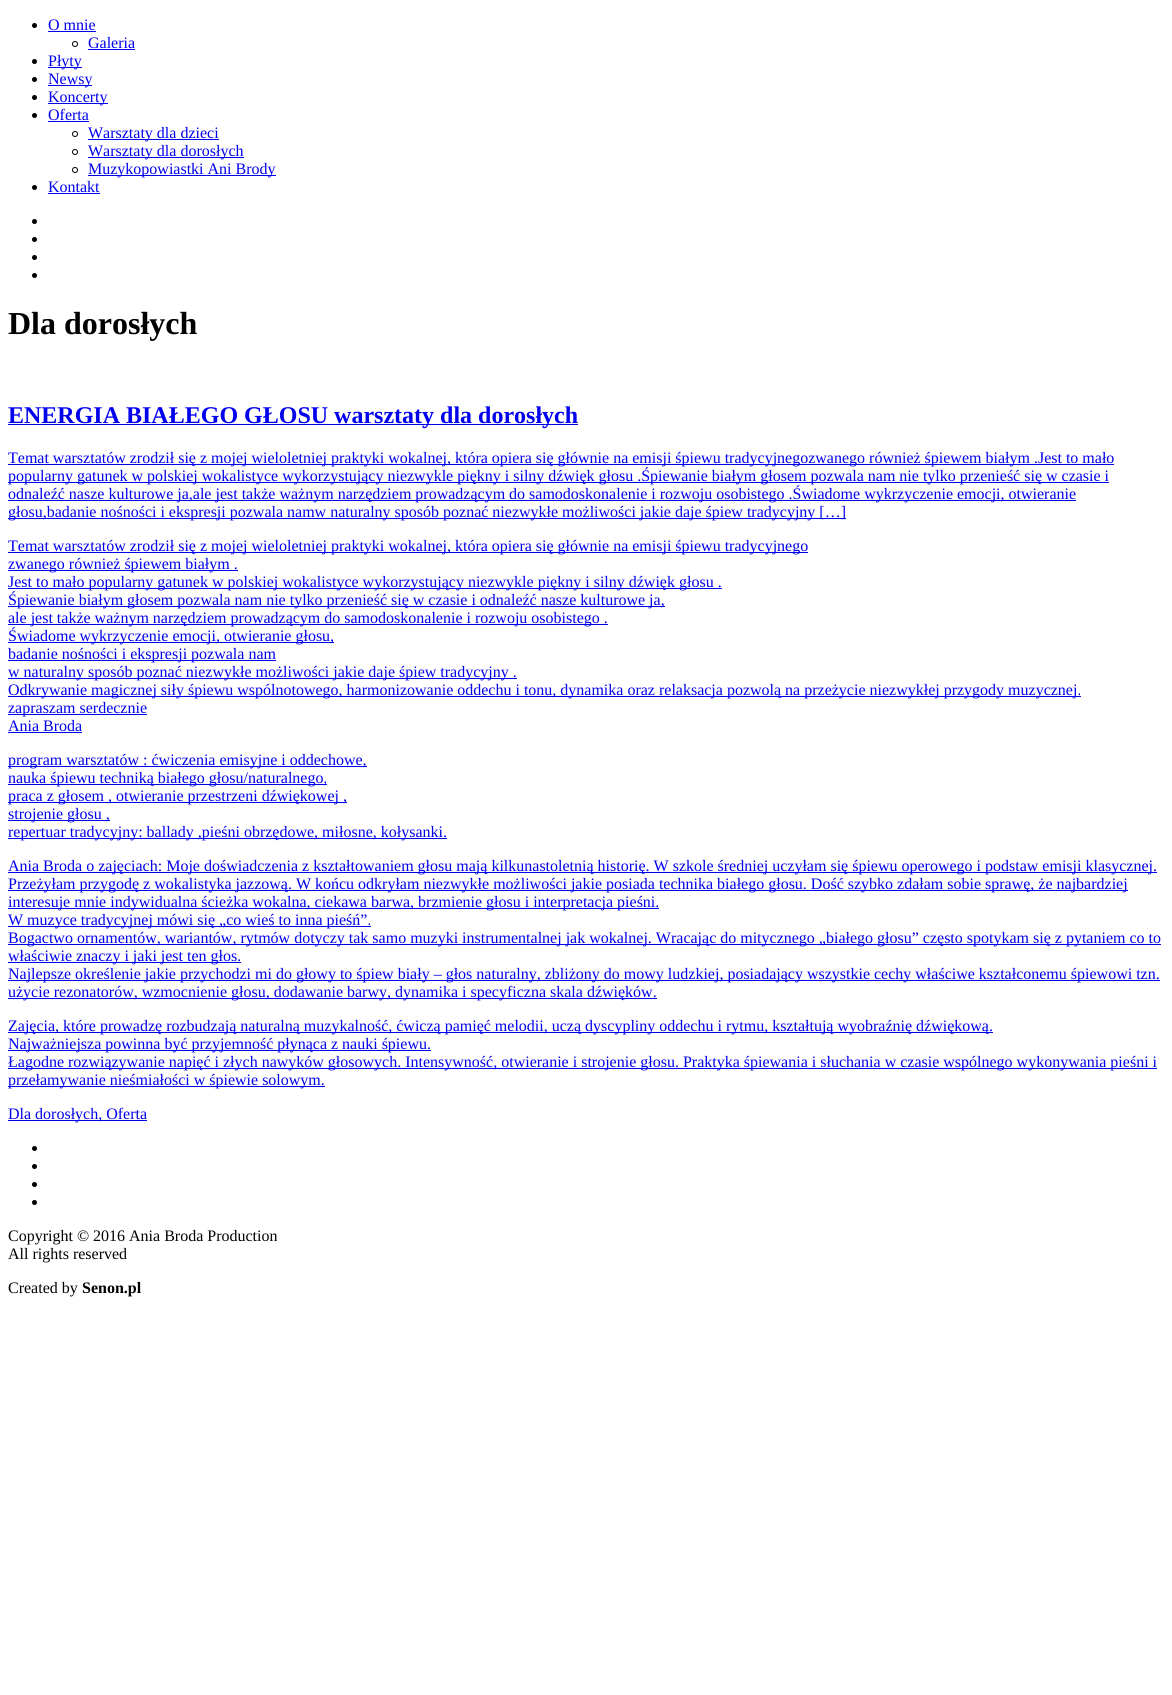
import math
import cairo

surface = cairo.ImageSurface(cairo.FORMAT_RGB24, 1172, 1695)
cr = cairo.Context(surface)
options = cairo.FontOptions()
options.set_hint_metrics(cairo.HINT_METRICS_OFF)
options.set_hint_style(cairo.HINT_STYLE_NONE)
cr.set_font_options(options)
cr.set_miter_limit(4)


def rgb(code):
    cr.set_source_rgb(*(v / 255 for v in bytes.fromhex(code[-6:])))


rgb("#ffffff")
cr.paint()
rgb("#000000")
cr.arc(34.5, 25.5, 2.5, 0, 2 * math.pi)
cr.fill()
rgb("#0000ee")
cr.rectangle(48, 31, 48, 1)
cr.fill()
cr.arc(75, 44, 2.5, 0, 2 * math.pi)
rgb("#000000")
cr.set_line_width(1)
cr.stroke()
rgb("#0000ee")
cr.rectangle(88, 49, 47, 1)
cr.fill()
rgb("#000000")
cr.arc(34.5, 61.5, 2.5, 0, 2 * math.pi)
cr.fill()
rgb("#0000ee")
cr.rectangle(48, 67, 34, 1)
cr.fill()
rgb("#000000")
cr.arc(34.5, 79.5, 2.5, 0, 2 * math.pi)
cr.fill()
rgb("#0000ee")
cr.rectangle(48, 85, 44, 1)
cr.fill()
rgb("#000000")
cr.arc(34.5, 97.5, 2.5, 0, 2 * math.pi)
cr.fill()
rgb("#0000ee")
cr.rectangle(48, 103, 60, 1)
cr.fill()
rgb("#000000")
cr.arc(34.5, 115.5, 2.5, 0, 2 * math.pi)
cr.fill()
rgb("#0000ee")
cr.rectangle(48, 121, 41, 1)
cr.fill()
cr.arc(75, 134, 2.5, 0, 2 * math.pi)
rgb("#000000")
cr.stroke()
rgb("#0000ee")
cr.rectangle(88, 139, 131, 1)
cr.fill()
cr.arc(75, 152, 2.5, 0, 2 * math.pi)
rgb("#000000")
cr.stroke()
rgb("#0000ee")
cr.rectangle(88, 157, 156, 1)
cr.fill()
cr.arc(75, 170, 2.5, 0, 2 * math.pi)
rgb("#000000")
cr.stroke()
rgb("#0000ee")
cr.rectangle(88, 175, 188, 1)
cr.fill()
rgb("#000000")
cr.arc(34.5, 187.5, 2.5, 0, 2 * math.pi)
cr.fill()
rgb("#0000ee")
cr.rectangle(48, 193, 52, 1)
cr.fill()
rgb("#000000")
cr.arc(34.5, 221.5, 2.5, 0, 2 * math.pi)
cr.fill()
cr.arc(34.5, 239.5, 2.5, 0, 2 * math.pi)
cr.fill()
cr.arc(34.5, 257.5, 2.5, 0, 2 * math.pi)
cr.fill()
cr.arc(34.5, 275.5, 2.5, 0, 2 * math.pi)
cr.fill()
for x, y, w, h, color in [
    (8, 424, 570, 1, "#0000ee"),
    (8, 464, 1106, 1, "#0000ee"),
    (8, 482, 1101, 1, "#0000ee"),
    (8, 500, 1068, 1, "#0000ee"),
    (8, 518, 838, 1, "#0000ee"),
    (8, 552, 800, 1, "#0000ee"),
    (8, 570, 230, 1, "#0000ee"),
    (8, 588, 714, 1, "#0000ee"),
    (8, 606, 657, 1, "#0000ee"),
    (8, 624, 600, 1, "#0000ee"),
    (8, 642, 326, 1, "#0000ee"),
    (8, 660, 268, 1, "#0000ee"),
    (8, 678, 509, 1, "#0000ee"),
    (8, 696, 1073, 1, "#0000ee"),
    (8, 714, 139, 1, "#0000ee"),
    (8, 732, 74, 1, "#0000ee"),
    (8, 766, 359, 1, "#0000ee"),
    (8, 784, 319, 1, "#0000ee"),
    (8, 802, 339, 1, "#0000ee"),
    (8, 820, 102, 1, "#0000ee"),
    (8, 838, 439, 1, "#0000ee"),
    (8, 872, 1149, 1, "#0000ee"),
    (8, 890, 1120, 1, "#0000ee"),
    (8, 908, 651, 1, "#0000ee"),
    (8, 926, 363, 1, "#0000ee"),
    (8, 944, 1153, 1, "#0000ee"),
    (8, 962, 233, 1, "#0000ee"),
    (8, 980, 1152, 1, "#0000ee"),
    (8, 998, 649, 1, "#0000ee"),
    (8, 1032, 985, 1, "#0000ee"),
    (8, 1050, 423, 1, "#0000ee"),
    (8, 1068, 1149, 1, "#0000ee"),
    (8, 1086, 317, 1, "#0000ee"),
    (8, 1120, 139, 1, "#0000ee"),
]:
    rgb(color)
    cr.rectangle(x, y, w, h)
    cr.fill()
rgb("#000000")
cr.arc(34.5, 1148.5, 2.5, 0, 2 * math.pi)
cr.fill()
cr.arc(34.5, 1166.5, 2.5, 0, 2 * math.pi)
cr.fill()
cr.arc(34.5, 1184.5, 2.5, 0, 2 * math.pi)
cr.fill()
cr.arc(34.5, 1202.5, 2.5, 0, 2 * math.pi)
cr.fill()
cr.select_font_face("Liberation Serif")
cr.set_font_size(16)
rgb("#0000ee")
for x, y, s in [
    (48, 30, "O mnie"),
    (88, 48, "Galeria"),
    (48, 66, "Płyty"),
    (48, 84, "Newsy"),
    (48, 102, "Koncerty"),
    (48, 120, "Oferta"),
    (88, 138, "Warsztaty dla dzieci"),
    (88, 156, "Warsztaty dla dorosłych"),
    (88, 174, "Muzykopowiastki Ani Brody"),
    (48, 192, "Kontakt"),
]:
    cr.move_to(x, y)
    cr.show_text(s)
cr.select_font_face("Liberation Serif", cairo.FONT_SLANT_NORMAL, cairo.FONT_WEIGHT_BOLD)
cr.set_font_size(32)
rgb("#000000")
cr.move_to(8, 334)
cr.show_text("Dla dorosłych")
cr.set_font_size(24)
rgb("#0000ee")
cr.move_to(8, 423)
cr.show_text("ENERGIA BIAŁEGO GŁOSU warsztaty dla dorosłych")
cr.select_font_face("Liberation Serif")
cr.set_font_size(16)
for x, y, s in [
    (8, 463, "Temat warsztatów zrodził się z mojej wieloletniej praktyki wokalnej, która opiera się głównie na emisji śpiewu tradycyjnegozwanego również śpiewem białym .Jest to mało"),
    (8, 481, "popularny gatunek w polskiej wokalistyce wykorzystujący niezwykle piękny i silny dźwięk głosu .Śpiewanie białym głosem pozwala nam nie tylko przenieść się w czasie i"),
    (8, 499, "odnaleźć nasze kulturowe ja,ale jest także ważnym narzędziem prowadzącym do samodoskonalenie i rozwoju osobistego .Świadome wykrzyczenie emocji, otwieranie"),
    (8, 517, "głosu,badanie nośności i ekspresji pozwala namw naturalny sposób poznać niezwykłe możliwości jakie daje śpiew tradycyjny […]"),
    (8, 551, "Temat warsztatów zrodził się z mojej wieloletniej praktyki wokalnej, która opiera się głównie na emisji śpiewu tradycyjnego"),
    (8, 569, "zwanego również śpiewem białym ."),
    (8, 587, "Jest to mało popularny gatunek w polskiej wokalistyce wykorzystujący niezwykle piękny i silny dźwięk głosu ."),
    (8, 605, "Śpiewanie białym głosem pozwala nam nie tylko przenieść się w czasie i odnaleźć nasze kulturowe ja,"),
    (8, 623, "ale jest także ważnym narzędziem prowadzącym do samodoskonalenie i rozwoju osobistego ."),
    (8, 641, "Świadome wykrzyczenie emocji, otwieranie głosu,"),
    (8, 659, "badanie nośności i ekspresji pozwala nam"),
    (8, 677, "w naturalny sposób poznać niezwykłe możliwości jakie daje śpiew tradycyjny ."),
    (8, 695, "Odkrywanie magicznej siły śpiewu wspólnotowego, harmonizowanie oddechu i tonu, dynamika oraz relaksacja pozwolą na przeżycie niezwykłej przygody muzycznej."),
    (8, 713, "zapraszam serdecznie"),
    (8, 731, "Ania Broda"),
    (8, 765, "program warsztatów : ćwiczenia emisyjne i oddechowe,"),
    (8, 783, "nauka śpiewu techniką białego głosu/naturalnego,"),
    (8, 801, "praca z głosem , otwieranie przestrzeni dźwiękowej ,"),
    (8, 819, "strojenie głosu ,"),
    (8, 837, "repertuar tradycyjny: ballady ,pieśni obrzędowe, miłosne, kołysanki."),
    (8, 871, "Ania Broda o zajęciach: Moje doświadczenia z kształtowaniem głosu mają kilkunastoletnią historię. W szkole średniej uczyłam się śpiewu operowego i podstaw emisji klasycznej."),
    (8, 889, "Przeżyłam przygodę z wokalistyka jazzową. W końcu odkryłam niezwykłe możliwości jakie posiada technika białego głosu. Dość szybko zdałam sobie sprawę, że najbardziej"),
    (8, 907, "interesuje mnie indywidualna ścieżka wokalna, ciekawa barwa, brzmienie głosu i interpretacja pieśni."),
    (8, 925, "W muzyce tradycyjnej mówi się „co wieś to inna pieśń”."),
    (8, 943, "Bogactwo ornamentów, wariantów, rytmów dotyczy tak samo muzyki instrumentalnej jak wokalnej. Wracając do mitycznego „białego głosu” często spotykam się z pytaniem co to"),
    (8, 961, "właściwie znaczy i jaki jest ten głos."),
    (8, 979, "Najlepsze określenie jakie przychodzi mi do głowy to śpiew biały – głos naturalny, zbliżony do mowy ludzkiej, posiadający wszystkie cechy właściwe kształconemu śpiewowi tzn."),
    (8, 997, "użycie rezonatorów, wzmocnienie głosu, dodawanie barwy, dynamika i specyficzna skala dźwięków."),
    (8, 1031, "Zajęcia, które prowadzę rozbudzają naturalną muzykalność, ćwiczą pamięć melodii, uczą dyscypliny oddechu i rytmu, kształtują wyobraźnię dźwiękową."),
    (8, 1049, "Najważniejsza powinna być przyjemność płynąca z nauki śpiewu."),
    (8, 1067, "Łagodne rozwiązywanie napięć i złych nawyków głosowych. Intensywność, otwieranie i strojenie głosu. Praktyka śpiewania i słuchania w czasie wspólnego wykonywania pieśni i"),
    (8, 1085, "przełamywanie nieśmiałości w śpiewie solowym."),
    (8, 1119, "Dla dorosłych, Oferta"),
]:
    cr.move_to(x, y)
    cr.show_text(s)
rgb("#000000")
for x, y, s in [
    (8, 1241, "Copyright © 2016 Ania Broda Production"),
    (8, 1259, "All rights reserved"),
    (8, 1293, "Created by"),
]:
    cr.move_to(x, y)
    cr.show_text(s)
cr.select_font_face("Liberation Serif", cairo.FONT_SLANT_NORMAL, cairo.FONT_WEIGHT_BOLD)
cr.move_to(82, 1293)
cr.show_text("Senon.pl")
surface.write_to_png("page.png")
